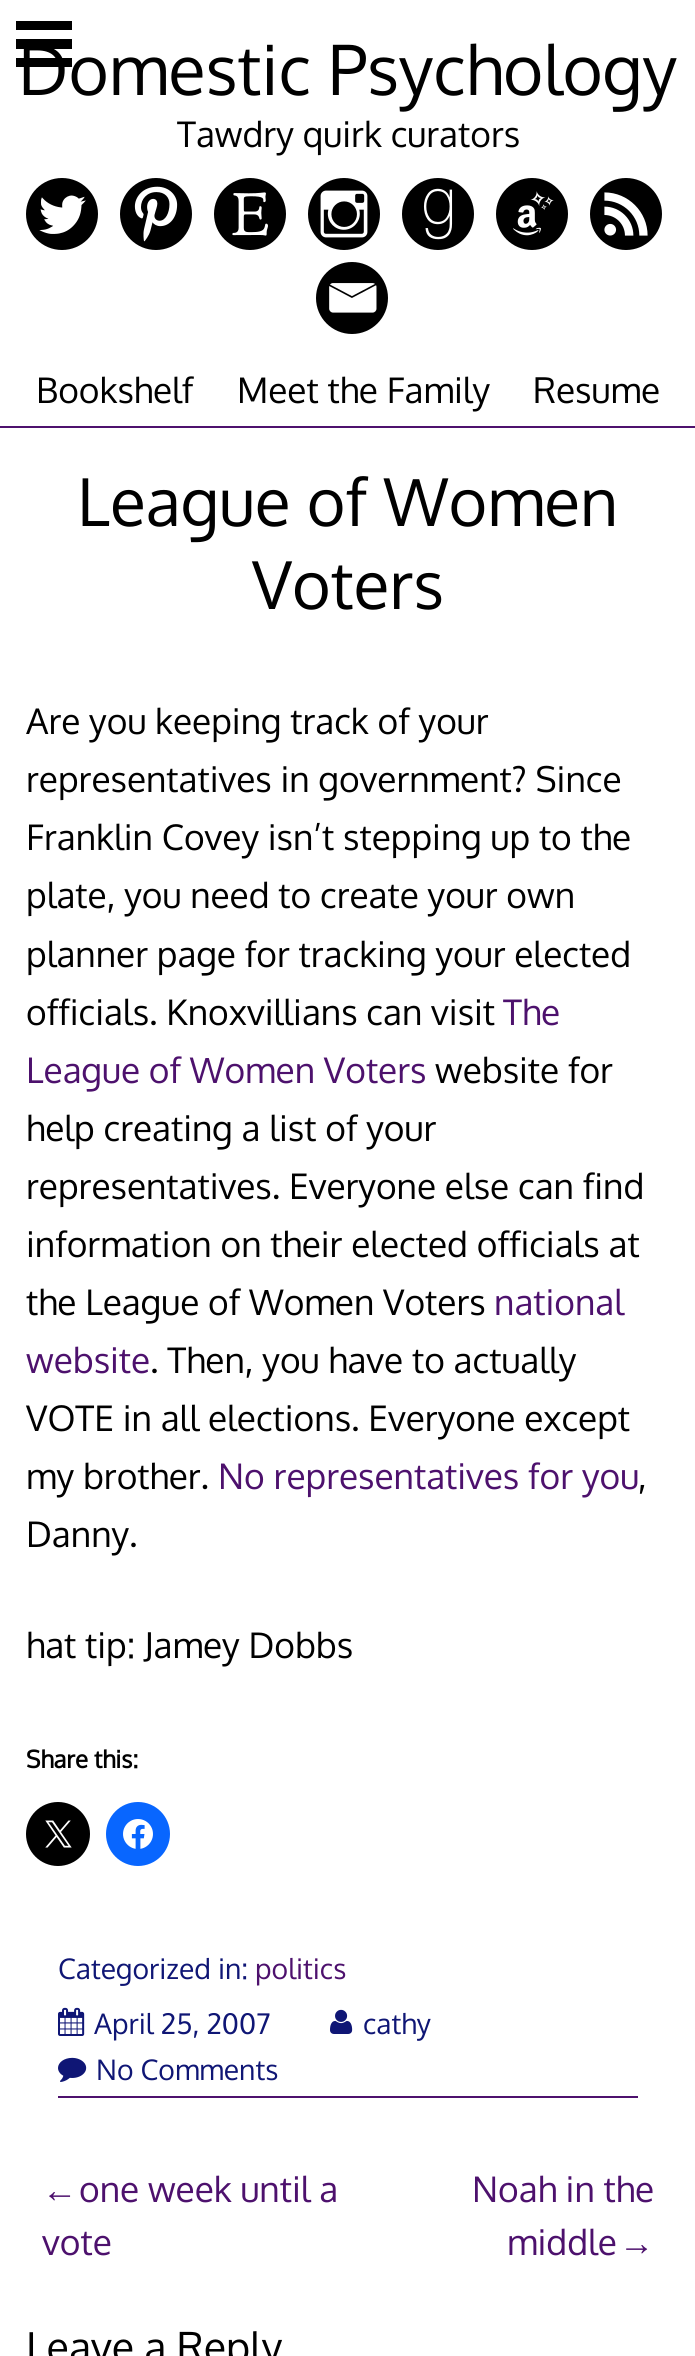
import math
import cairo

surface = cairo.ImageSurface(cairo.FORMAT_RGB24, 695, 2356)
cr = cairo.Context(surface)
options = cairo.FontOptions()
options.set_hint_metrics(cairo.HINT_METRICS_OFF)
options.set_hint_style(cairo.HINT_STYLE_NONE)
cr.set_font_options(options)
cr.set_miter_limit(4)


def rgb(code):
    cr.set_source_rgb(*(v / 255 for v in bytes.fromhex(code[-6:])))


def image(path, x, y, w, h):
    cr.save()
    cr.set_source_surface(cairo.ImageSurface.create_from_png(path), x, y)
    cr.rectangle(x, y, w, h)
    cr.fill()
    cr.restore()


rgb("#ffffff")
cr.paint()
for x, y, w, h, color in [
    (16, 21, 56, 9, "#000000"),
    (16, 39, 56, 10, "#000000"),
    (16, 58, 56, 9, "#000000"),
    (0, 426, 695, 2, "#4d116d"),
]:
    rgb(color)
    cr.rectangle(x, y, w, h)
    cr.fill()
image("img/1.png", 26, 178, 72, 72)
image("img/2.png", 120, 178, 72, 72)
image("img/3.png", 214, 178, 72, 72)
image("img/4.png", 308, 178, 72, 72)
image("img/5.png", 402, 178, 72, 72)
image("img/6.png", 496, 178, 72, 72)
image("img/7.png", 590, 178, 72, 72)
image("img/8.png", 316, 262, 72, 72)
rgb("#000000")
cr.arc(58, 1834, 32, 0, 2 * math.pi)
cr.fill()
image("img/9.png", 45, 1820, 27, 28)
rgb("#0866ff")
cr.arc(138, 1834, 32, 0, 2 * math.pi)
cr.fill()
image("img/10.png", 123, 1819, 30, 30)
rgb("#4d116d")
cr.rectangle(58, 2096, 580, 2)
cr.fill()
image("img/11.png", 58, 2007, 27, 29)
image("img/12.png", 330, 2009, 23, 25)
image("img/13.png", 58, 2057, 29, 25)
cr.select_font_face("Oxygen")
cr.set_font_size(68.75)
rgb("#000000")
cr.move_to(18, 95)
cr.show_text("Domestic Psychology")
cr.set_font_size(35.25)
for x, y, s in [
    (177, 147, "Tawdry quirk curators"),
    (36, 403, "Bookshelf"),
    (237, 403, "Meet the Family"),
    (533, 403, "Resume"),
]:
    cr.move_to(x, y)
    cr.show_text(s)
cr.set_font_size(66)
cr.move_to(77, 526)
cr.show_text("League of Women")
cr.move_to(252, 609)
cr.show_text("Voters")
cr.set_font_size(35.25)
for x, y, s in [
    (26, 734, "Are you keeping track of your"),
    (26, 792, "representatives in government? Since"),
    (26, 850, "Franklin Covey isn’t stepping up to the"),
    (26, 908, "plate, you need to create your own"),
    (26, 967, "planner page for tracking your elected"),
    (26, 1025, "officials. Knoxvillians can visit"),
]:
    cr.move_to(x, y)
    cr.show_text(s)
rgb("#4d116d")
cr.move_to(503, 1025)
cr.show_text("The")
cr.move_to(26, 1083)
cr.show_text("League of Women Voters")
rgb("#000000")
for x, y, s in [
    (435, 1083, "website for"),
    (26, 1141, "help creating a list of your"),
    (26, 1199, "representatives. Everyone else can find"),
    (26, 1257, "information on their elected officials at"),
    (26, 1315, "the League of Women Voters"),
]:
    cr.move_to(x, y)
    cr.show_text(s)
rgb("#4d116d")
cr.move_to(494, 1315)
cr.show_text("national")
cr.move_to(26, 1373)
cr.show_text("website")
rgb("#000000")
for x, y, s in [
    (150, 1373, ". Then, you have to actually"),
    (26, 1431, "VOTE in all elections. Everyone except"),
    (26, 1489, "my brother."),
]:
    cr.move_to(x, y)
    cr.show_text(s)
rgb("#4d116d")
cr.move_to(218, 1489)
cr.show_text("No representatives for you")
rgb("#000000")
for x, y, s in [
    (638, 1489, ","),
    (26, 1547, "Danny."),
    (26, 1658, "hat tip: Jamey Dobbs"),
]:
    cr.move_to(x, y)
    cr.show_text(s)
cr.select_font_face("Oxygen", cairo.FONT_SLANT_NORMAL, cairo.FONT_WEIGHT_BOLD)
cr.set_font_size(24)
cr.move_to(26, 1768)
cr.show_text("Share this:")
cr.select_font_face("Oxygen")
cr.set_font_size(28.25)
rgb("#0f1675")
cr.move_to(58, 1979)
cr.show_text("Categorized in:")
rgb("#4d116d")
cr.move_to(255, 1979)
cr.show_text("politics")
rgb("#0f1675")
for x, y, s in [
    (94, 2034, "April 25, 2007"),
    (363, 2034, "cathy"),
    (96, 2080, "No Comments"),
]:
    cr.move_to(x, y)
    cr.show_text(s)
cr.select_font_face("Liberation Sans")
cr.set_font_size(35.25)
rgb("#4d116d")
cr.move_to(42, 2202)
cr.show_text("←")
cr.select_font_face("Oxygen")
for x, y, s in [
    (79, 2202, "one week until a"),
    (42, 2255, "vote"),
    (472, 2202, "Noah in the"),
    (507, 2255, "middle"),
]:
    cr.move_to(x, y)
    cr.show_text(s)
cr.select_font_face("Liberation Sans")
cr.move_to(619, 2255)
cr.show_text("→")
cr.select_font_face("Oxygen")
cr.set_font_size(41.25)
rgb("#000000")
cr.move_to(26, 2362)
cr.show_text("Leave a Reply")
surface.write_to_png("page.png")
